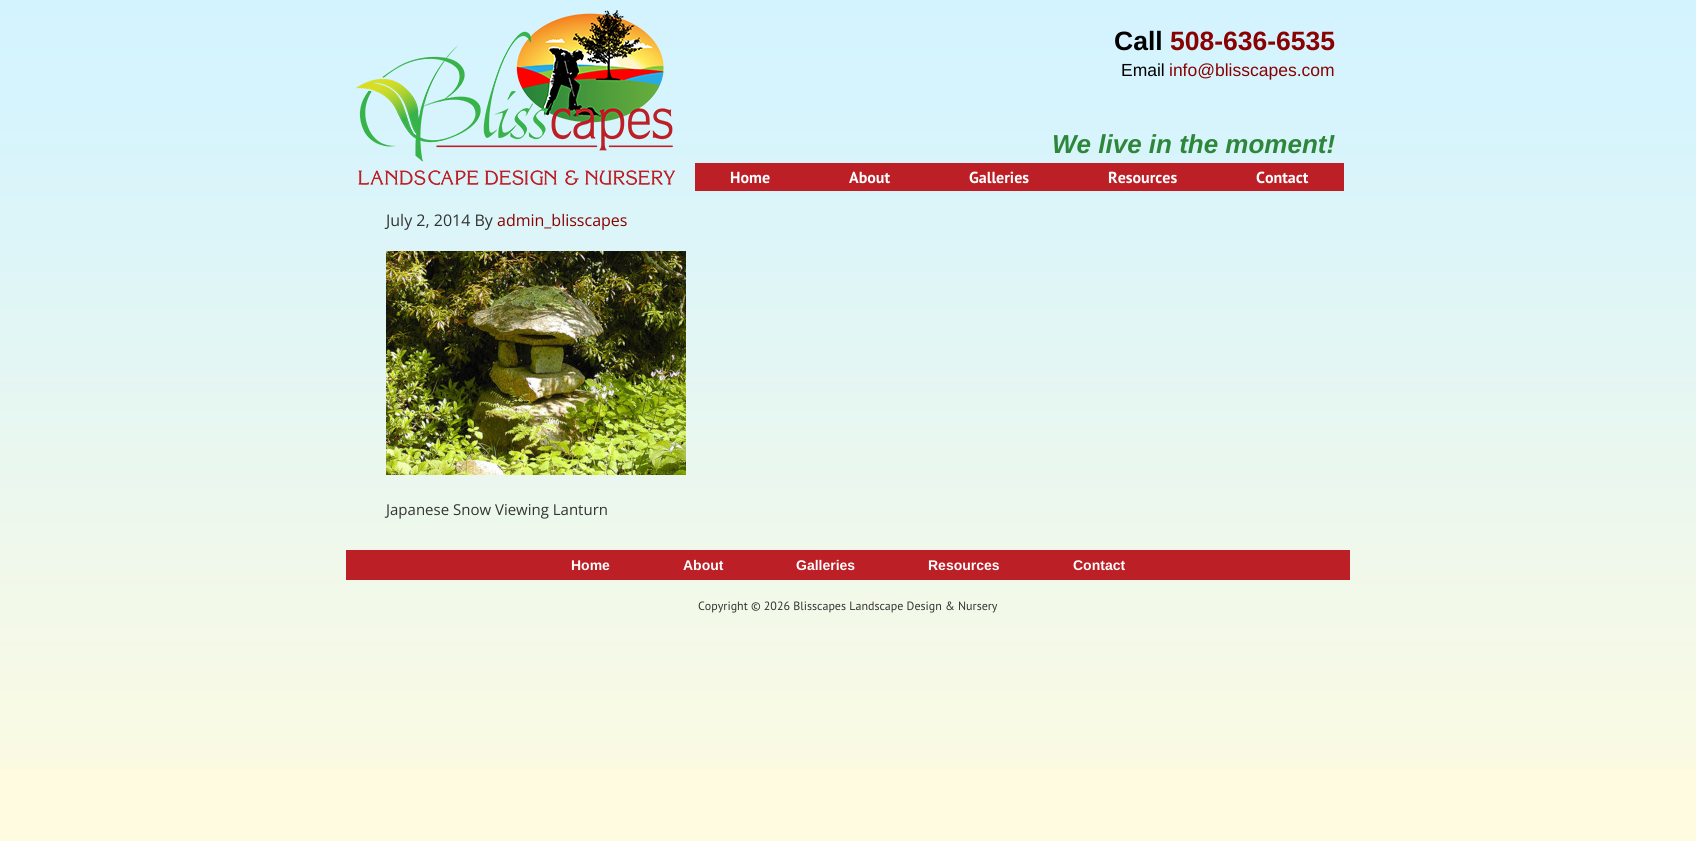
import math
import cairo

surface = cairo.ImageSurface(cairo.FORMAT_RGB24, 1696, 841)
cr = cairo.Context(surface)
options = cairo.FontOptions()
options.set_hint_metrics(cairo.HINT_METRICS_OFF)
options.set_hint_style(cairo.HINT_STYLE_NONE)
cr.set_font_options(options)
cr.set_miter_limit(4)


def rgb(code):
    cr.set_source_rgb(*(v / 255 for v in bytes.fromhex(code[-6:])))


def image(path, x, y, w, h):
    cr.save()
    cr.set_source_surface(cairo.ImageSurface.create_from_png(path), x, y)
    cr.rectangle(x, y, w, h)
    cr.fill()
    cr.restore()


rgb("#fffbe0")
cr.paint()
image("img/1.png", 0, 626, 1696, 143)
image("img/2.png", 0, 0, 1696, 626)
image("img/3.png", 356, 10, 319, 175)
rgb("#bc1f26")
cr.rectangle(695, 163, 649, 28)
cr.fill()
image("img/4.png", 386, 251, 300, 224)
cr.rectangle(346, 550, 1004, 30)
cr.fill()
cr.select_font_face("Liberation Sans", cairo.FONT_SLANT_NORMAL, cairo.FONT_WEIGHT_BOLD)
cr.set_font_size(26.5)
rgb("#000000")
cr.move_to(1114, 50)
cr.show_text("Call")
rgb("#890101")
cr.move_to(1170, 50)
cr.show_text("508-636-6535")
cr.select_font_face("Liberation Sans")
cr.set_font_size(17.5)
rgb("#000000")
cr.move_to(1121, 76)
cr.show_text("Email")
rgb("#890101")
cr.move_to(1169, 76)
cr.show_text("info@blisscapes.com")
cr.select_font_face("Liberation Sans", cairo.FONT_SLANT_ITALIC, cairo.FONT_WEIGHT_BOLD)
cr.set_font_size(26)
rgb("#2d863a")
cr.move_to(1052, 153)
cr.show_text("We live in the moment!")
cr.select_font_face("PT Sans", cairo.FONT_SLANT_NORMAL, cairo.FONT_WEIGHT_BOLD)
cr.set_font_size(16)
rgb("#ffffff")
for x, y, s in [
    (730, 183, "Home"),
    (849, 183, "About"),
    (969, 183, "Galleries"),
    (1108, 183, "Resources"),
    (1256, 183, "Contact"),
]:
    cr.move_to(x, y)
    cr.show_text(s)
cr.select_font_face("Open Sans")
rgb("#333333")
cr.move_to(386, 226)
cr.show_text("July 2, 2014 By")
rgb("#890101")
cr.move_to(497, 226)
cr.show_text("admin_blisscapes")
cr.set_font_size(15)
rgb("#333333")
cr.move_to(386, 515)
cr.show_text("Japanese Snow Viewing Lanturn")
cr.select_font_face("Liberation Sans", cairo.FONT_SLANT_NORMAL, cairo.FONT_WEIGHT_BOLD)
cr.set_font_size(14)
rgb("#ffffff")
for x, y, s in [
    (571, 570, "Home"),
    (683, 570, "About"),
    (796, 570, "Galleries"),
    (928, 570, "Resources"),
    (1073, 570, "Contact"),
]:
    cr.move_to(x, y)
    cr.show_text(s)
cr.select_font_face("PT Sans")
cr.set_font_size(12)
rgb("#333333")
cr.move_to(698, 610)
cr.show_text("Copyright © 2026 Blisscapes Landscape Design & Nursery")
surface.write_to_png("page.png")
